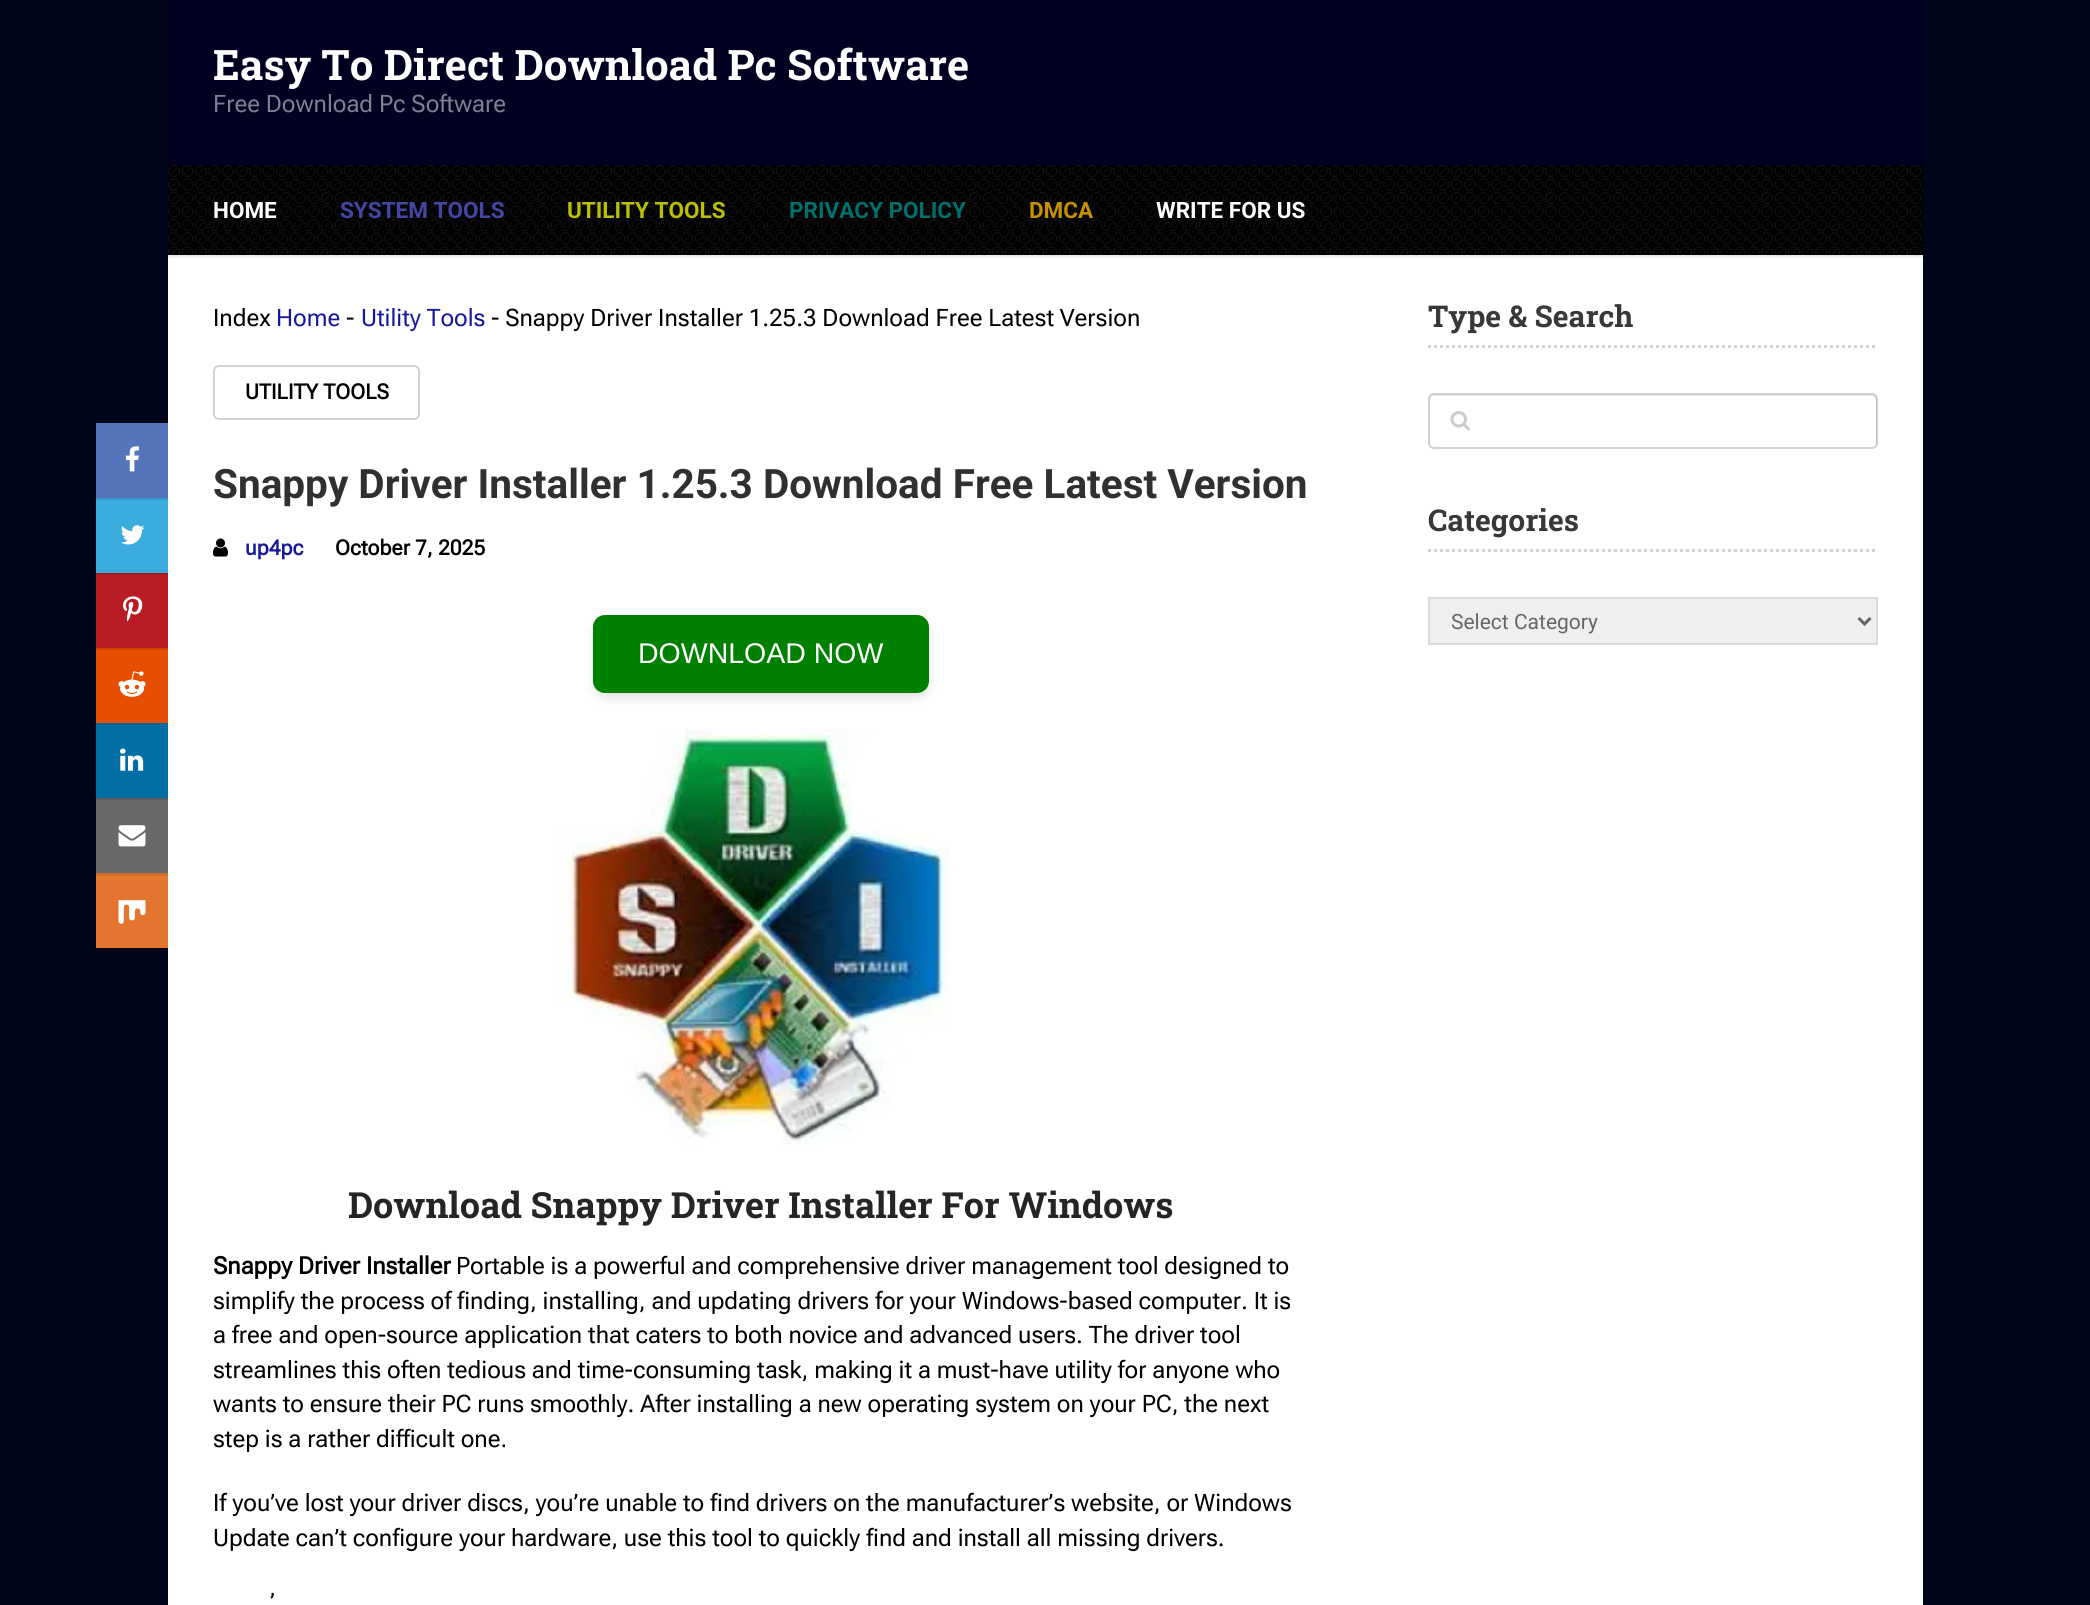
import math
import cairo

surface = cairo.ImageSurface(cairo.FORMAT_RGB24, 2090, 1605)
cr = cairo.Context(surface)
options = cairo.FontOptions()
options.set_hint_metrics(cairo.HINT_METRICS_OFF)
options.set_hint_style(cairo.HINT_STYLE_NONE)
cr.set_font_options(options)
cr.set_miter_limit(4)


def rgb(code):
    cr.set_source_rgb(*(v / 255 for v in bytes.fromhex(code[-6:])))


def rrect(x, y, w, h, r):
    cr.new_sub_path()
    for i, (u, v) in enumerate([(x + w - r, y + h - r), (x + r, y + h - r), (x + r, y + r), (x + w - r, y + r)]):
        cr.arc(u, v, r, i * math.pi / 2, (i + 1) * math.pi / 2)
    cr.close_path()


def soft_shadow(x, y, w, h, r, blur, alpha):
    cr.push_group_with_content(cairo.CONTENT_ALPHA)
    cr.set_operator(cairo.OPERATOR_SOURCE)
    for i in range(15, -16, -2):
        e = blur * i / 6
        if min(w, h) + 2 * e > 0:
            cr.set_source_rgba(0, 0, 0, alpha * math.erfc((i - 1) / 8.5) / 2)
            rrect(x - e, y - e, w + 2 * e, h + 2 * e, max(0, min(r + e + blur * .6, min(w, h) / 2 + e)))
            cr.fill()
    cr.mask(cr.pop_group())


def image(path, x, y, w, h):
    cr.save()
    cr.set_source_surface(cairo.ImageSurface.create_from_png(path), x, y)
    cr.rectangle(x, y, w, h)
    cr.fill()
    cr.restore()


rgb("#000519")
cr.paint()
rgb("#020021")
cr.rectangle(168, 0, 1755, 165)
cr.fill()
rgb("#ffffff")
cr.rectangle(168, 255, 1755, 1350)
cr.fill()
rgb("#000000")
soft_shadow(168, 167, 1755, 90, 0, 1, 0.1)
image("img/1.png", 168, 165, 1755, 90)
rgb("#00053d")
cr.rectangle(1336, 192, 1, 36)
cr.fill()
image("img/2.png", 213, 192, 1124, 36)
rrect(214, 366, 205, 53, 5)
rgb("#d1d1d1")
cr.stroke()
image("img/3.png", 213, 538, 15, 19)
rgb("#5475bc")
cr.rectangle(96, 423, 72, 75)
cr.fill()
image("img/4.png", 125, 446, 14, 26)
rgb("#3aacdd")
cr.rectangle(96, 500, 72, 73)
cr.fill()
rgb("#349bc7")
cr.rectangle(96, 498, 72, 2)
cr.fill()
image("img/5.png", 120, 525, 25, 20)
rgb("#b71d23")
cr.rectangle(96, 575, 72, 73)
cr.fill()
rgb("#a51a20")
cr.rectangle(96, 573, 72, 2)
cr.fill()
image("img/6.png", 123, 596, 20, 26)
rgb("#e64e00")
cr.rectangle(96, 650, 72, 73)
cr.fill()
rgb("#cf4600")
cr.rectangle(96, 648, 72, 2)
cr.fill()
image("img/7.png", 118, 671, 28, 26)
rgb("#006fa4")
cr.rectangle(96, 725, 72, 73)
cr.fill()
rgb("#006494")
cr.rectangle(96, 723, 72, 2)
cr.fill()
image("img/8.png", 120, 748, 24, 23)
rgb("#696969")
cr.rectangle(96, 800, 72, 73)
cr.fill()
rgb("#5f5f5f")
cr.rectangle(96, 798, 72, 2)
cr.fill()
image("img/9.png", 118, 825, 28, 22)
rgb("#e4752f")
cr.rectangle(96, 875, 72, 73)
cr.fill()
rgb("#cd692a")
cr.rectangle(96, 873, 72, 2)
cr.fill()
image("img/10.png", 118, 900, 28, 24)
rgb("#000000")
soft_shadow(593, 621, 336, 78, 12, 4.5, 0.1)
rgb("#008000")
rrect(593, 615, 336, 78, 12)
cr.fill()
image("img/11.png", 552, 729, 398, 416)
cr.new_path()
cr.move_to(1428, 346.5)
cr.line_to(1878, 346.5)
rgb("#d1d1d1")
cr.set_line_width(3)
cr.set_dash([3, 3])
cr.stroke()
rgb("#e6e6e6")
cr.new_path()
cr.move_to(1434, 396)
cr.line_to(1872, 396)
cr.curve_to(1874, 396, 1876, 398, 1876, 400)
cr.line_to(1876, 445)
cr.curve_to(1877, 444, 1877, 443, 1877, 442)
cr.line_to(1877, 400)
cr.curve_to(1877, 397, 1875, 395, 1872, 395)
cr.line_to(1435, 395)
cr.curve_to(1432, 395, 1430, 397, 1430, 400)
cr.curve_to(1430, 398, 1432, 396, 1434, 396)
cr.close_path()
cr.fill()
rrect(1429, 394, 448, 54, 5)
cr.set_source_rgba(0, 0, 0, 0.18)
cr.set_line_width(2)
cr.set_dash([])
cr.stroke()
image("img/12.png", 1450, 411, 20, 20)
cr.new_path()
cr.move_to(1428, 550.5)
cr.line_to(1878, 550.5)
rgb("#d1d1d1")
cr.set_line_width(3)
cr.set_dash([3, 3])
cr.stroke()
rgb("#efefef")
cr.rectangle(1429, 598, 448, 46)
cr.fill_preserve()
rgb("#d8d8d8")
cr.set_line_width(2)
cr.set_dash([])
cr.stroke()
cr.new_path()
cr.move_to(1858.5, 618)
cr.line_to(1864.5, 624)
cr.line_to(1870.5, 618)
rgb("#666666")
cr.set_line_width(3)
cr.stroke()
cr.select_font_face("Roboto Slab", cairo.FONT_SLANT_NORMAL, cairo.FONT_WEIGHT_BOLD)
cr.set_font_size(42)
rgb("#ffffff")
cr.move_to(213, 80)
cr.show_text("Easy To Direct Download Pc Software")
cr.select_font_face("Roboto Flex")
cr.set_font_size(24)
rgb("#818090")
cr.move_to(213, 112)
cr.show_text("Free Download Pc Software")
cr.select_font_face("Roboto", cairo.FONT_SLANT_NORMAL, cairo.FONT_WEIGHT_BOLD)
cr.set_font_size(22.5)
rgb("#ffffff")
cr.move_to(213, 218)
cr.show_text("HOME")
rgb("#4446a3")
cr.move_to(340, 218)
cr.show_text("SYSTEM TOOLS")
rgb("#bbc101")
cr.move_to(567, 218)
cr.show_text("UTILITY TOOLS")
rgb("#00706c")
cr.move_to(789, 218)
cr.show_text("PRIVACY POLICY")
rgb("#c69100")
cr.move_to(1029, 218)
cr.show_text("DMCA")
rgb("#ffffff")
cr.move_to(1156, 218)
cr.show_text("WRITE FOR US")
cr.select_font_face("Roboto Flex")
cr.set_font_size(24)
rgb("#000000")
cr.move_to(213, 326)
cr.show_text("Index")
rgb("#17179e")
cr.move_to(276, 326)
cr.show_text("Home")
rgb("#000000")
cr.move_to(346, 326)
cr.show_text("-")
rgb("#17179e")
cr.move_to(361, 326)
cr.show_text("Utility Tools")
rgb("#000000")
cr.move_to(491, 326)
cr.show_text("- Snappy Driver Installer 1.25.3 Download Free Latest Version")
cr.select_font_face("Roboto Flex", cairo.FONT_SLANT_NORMAL, cairo.FONT_WEIGHT_BOLD)
cr.set_font_size(21)
cr.move_to(245, 399)
cr.show_text("UTILITY TOOLS")
cr.select_font_face("Roboto", cairo.FONT_SLANT_NORMAL, cairo.FONT_WEIGHT_BOLD)
cr.set_font_size(40.5)
rgb("#303030")
cr.move_to(213, 498)
cr.show_text("Snappy Driver Installer 1.25.3 Download Free Latest Version")
cr.select_font_face("Roboto Flex", cairo.FONT_SLANT_NORMAL, cairo.FONT_WEIGHT_BOLD)
cr.set_font_size(21)
rgb("#17179e")
cr.move_to(245, 555)
cr.show_text("up4pc")
rgb("#000000")
cr.move_to(335, 555)
cr.show_text("October 7, 2025")
cr.select_font_face("Liberation Sans")
cr.set_font_size(28.5)
rgb("#ffffff")
cr.move_to(638, 663)
cr.show_text("DOWNLOAD NOW")
cr.select_font_face("Roboto Slab", cairo.FONT_SLANT_NORMAL, cairo.FONT_WEIGHT_BOLD)
cr.set_font_size(36)
rgb("#252525")
cr.move_to(348, 1218)
cr.show_text("Download Snappy Driver Installer For Windows")
cr.select_font_face("Roboto Flex", cairo.FONT_SLANT_NORMAL, cairo.FONT_WEIGHT_BOLD)
cr.set_font_size(24)
rgb("#000000")
cr.move_to(213, 1274)
cr.show_text("Snappy Driver Installer")
cr.select_font_face("Roboto Flex")
for x, y, s in [
    (456, 1274, "Portable is a powerful and comprehensive driver management tool designed to"),
    (213, 1309, "simplify the process of finding, installing, and updating drivers for your Windows-based computer. It is"),
    (213, 1343, "a free and open-source application that caters to both novice and advanced users. The driver tool"),
    (213, 1378, "streamlines this often tedious and time-consuming task, making it a must-have utility for anyone who"),
    (213, 1412, "wants to ensure their PC runs smoothly. After installing a new operating system on your PC, the next"),
    (213, 1447, "step is a rather difficult one."),
    (213, 1511, "If you’ve lost your driver discs, you’re unable to find drivers on the manufacturer’s website, or Windows"),
    (213, 1546, "Update can’t configure your hardware, use this tool to quickly find and install all missing drivers."),
    (270, 1610, "’"),
]:
    cr.move_to(x, y)
    cr.show_text(s)
cr.select_font_face("Roboto Slab", cairo.FONT_SLANT_NORMAL, cairo.FONT_WEIGHT_BOLD)
cr.set_font_size(30)
rgb("#383838")
cr.move_to(1428, 327)
cr.show_text("Type & Search")
cr.move_to(1428, 531)
cr.show_text("Categories")
cr.select_font_face("Roboto")
cr.set_font_size(21)
rgb("#666666")
cr.move_to(1451, 629)
cr.show_text("Select Category")
surface.write_to_png("page.png")
